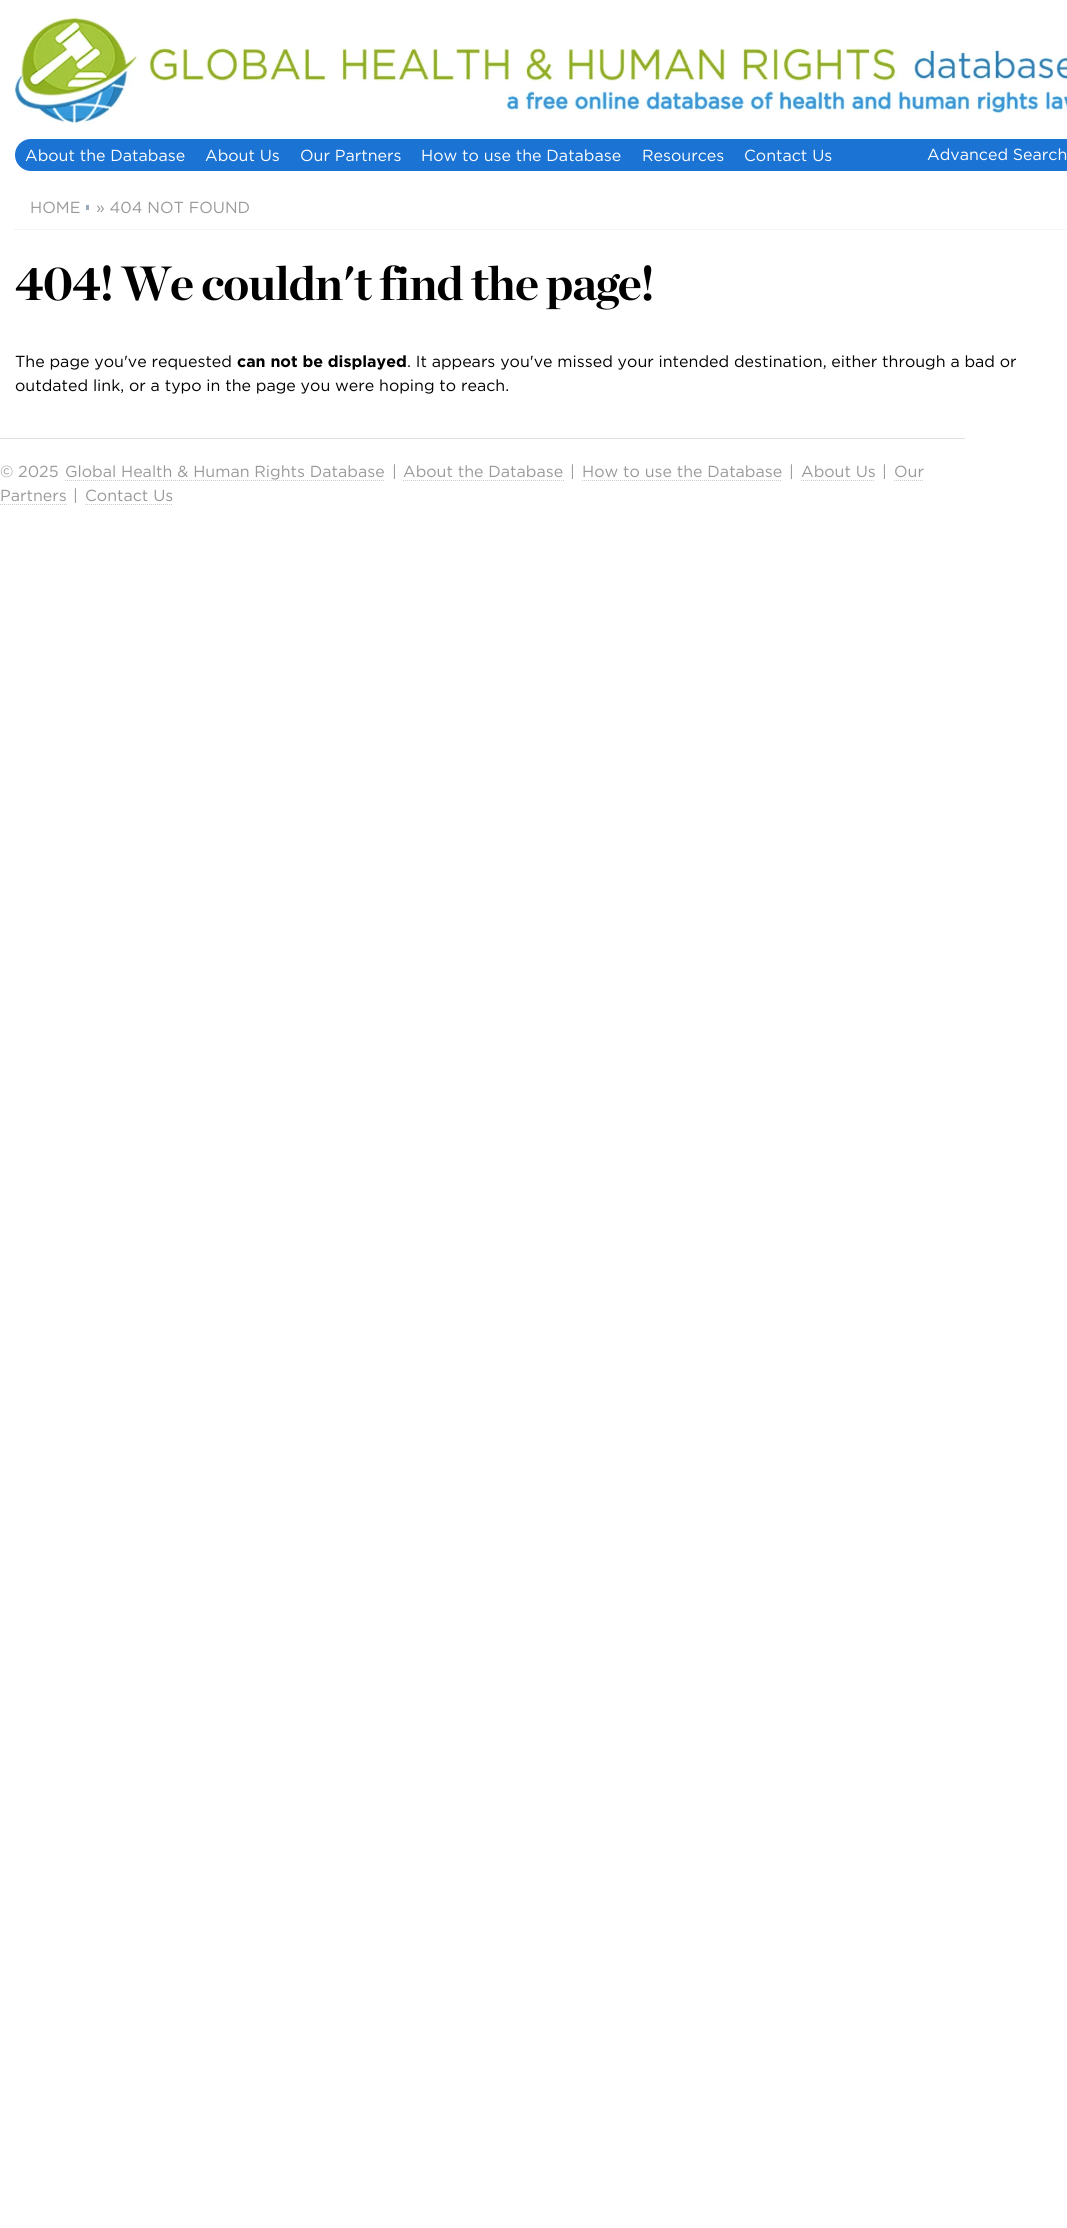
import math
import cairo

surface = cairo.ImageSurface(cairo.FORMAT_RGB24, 1067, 2228)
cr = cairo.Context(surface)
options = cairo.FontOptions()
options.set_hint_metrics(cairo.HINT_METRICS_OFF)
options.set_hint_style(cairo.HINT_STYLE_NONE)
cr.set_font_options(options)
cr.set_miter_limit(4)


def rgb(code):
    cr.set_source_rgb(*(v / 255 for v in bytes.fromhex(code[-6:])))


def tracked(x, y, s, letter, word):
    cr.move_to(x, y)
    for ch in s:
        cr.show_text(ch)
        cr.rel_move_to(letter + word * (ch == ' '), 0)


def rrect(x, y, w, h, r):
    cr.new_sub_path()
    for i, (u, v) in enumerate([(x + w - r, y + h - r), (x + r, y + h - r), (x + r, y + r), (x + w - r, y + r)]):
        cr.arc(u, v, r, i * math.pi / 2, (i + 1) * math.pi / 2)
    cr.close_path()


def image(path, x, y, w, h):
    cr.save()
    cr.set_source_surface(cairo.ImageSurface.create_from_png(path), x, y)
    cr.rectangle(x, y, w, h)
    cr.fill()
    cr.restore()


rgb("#ffffff")
cr.paint()
image("img/1.png", 15, 18, 1052, 105)
rgb("#1b73d3")
rrect(15, 139, 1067, 32, 16)
cr.fill()
cr.new_path()
cr.move_to(15, 229.5)
cr.line_to(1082, 229.5)
rgb("#e9e9e9")
cr.set_line_width(1)
cr.set_dash([1, 1])
cr.stroke()
rgb("#9aabbc")
cr.rectangle(86, 205, 3, 5)
cr.fill()
rgb("#e0e0e0")
cr.rectangle(0, 438, 965, 1)
cr.fill()
cr.new_path()
cr.move_to(65, 480.5)
cr.line_to(385, 480.5)
rgb("#cccccc")
cr.stroke()
cr.new_path()
cr.move_to(403, 480.5)
cr.line_to(564, 480.5)
cr.stroke()
cr.new_path()
cr.move_to(582, 480.5)
cr.line_to(782, 480.5)
cr.stroke()
cr.new_path()
cr.move_to(801, 480.5)
cr.line_to(875, 480.5)
cr.stroke()
cr.new_path()
cr.move_to(894, 480.5)
cr.line_to(924, 480.5)
cr.stroke()
cr.new_path()
cr.move_to(0, 504.5)
cr.line_to(67, 504.5)
cr.stroke()
cr.new_path()
cr.move_to(85, 504.5)
cr.line_to(173, 504.5)
cr.stroke()
cr.select_font_face("Gotham")
cr.set_font_size(16)
rgb("#ffffff")
for x, y, s in [
    (25, 161, "About the Database"),
    (205, 161, "About Us"),
    (300, 161, "Our Partners"),
    (421, 161, "How to use the Database"),
    (642, 161, "Resources"),
    (744, 161, "Contact Us"),
    (927, 160, "Advanced Search"),
]:
    cr.move_to(x, y)
    cr.show_text(s)
rgb("#999999")
cr.move_to(30, 213)
cr.show_text("HOME")
cr.move_to(96, 213)
cr.show_text("» 404 NOT FOUND")
cr.select_font_face("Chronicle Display", cairo.FONT_SLANT_NORMAL, cairo.FONT_WEIGHT_BOLD)
cr.set_font_size(48)
rgb("#000000")
tracked(15, 300, "404! We couldn't find the page!", -1, 0)
cr.select_font_face("Gotham")
cr.set_font_size(16)
cr.move_to(15, 367)
cr.show_text("The page you've requested")
cr.select_font_face("Gotham", cairo.FONT_SLANT_NORMAL, cairo.FONT_WEIGHT_BOLD)
cr.move_to(237, 367)
cr.show_text("can not be displayed")
cr.select_font_face("Gotham")
cr.move_to(407, 367)
cr.show_text(". It appears you've missed your intended destination, either through a bad or")
cr.move_to(15, 391)
cr.show_text("outdated link, or a typo in the page you were hoping to reach.")
rgb("#999999")
for x, y, s in [
    (0, 477, "© 2025"),
    (65, 477, "Global Health & Human Rights Database"),
    (392, 477, "|"),
    (403, 477, "About the Database"),
    (570, 477, "|"),
    (582, 477, "How to use the Database"),
    (789, 477, "|"),
    (801, 477, "About Us"),
    (882, 477, "|"),
    (894, 477, "Our"),
    (0, 501, "Partners"),
    (73, 501, "|"),
    (85, 501, "Contact Us"),
]:
    cr.move_to(x, y)
    cr.show_text(s)
surface.write_to_png("page.png")
